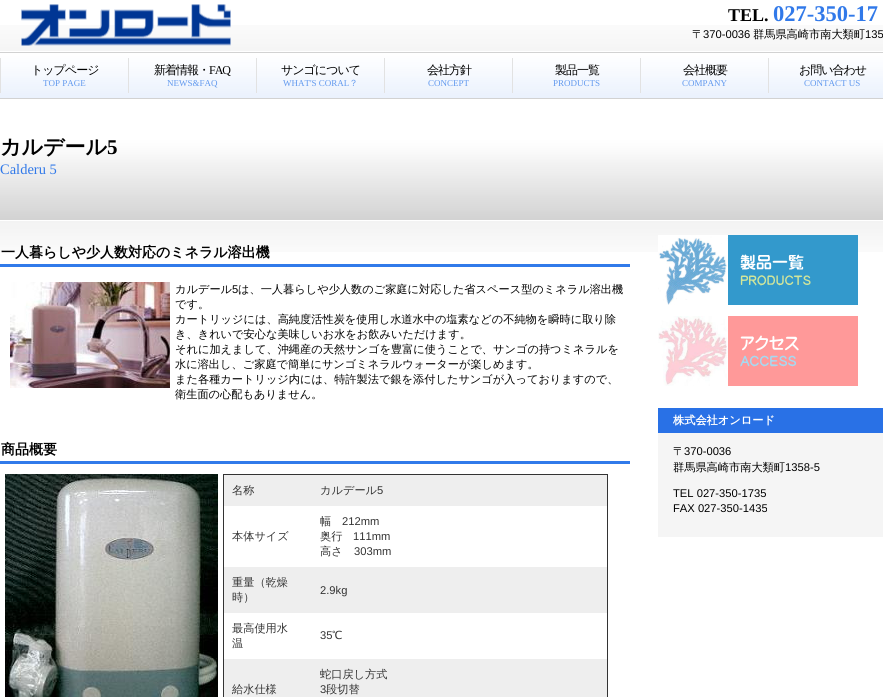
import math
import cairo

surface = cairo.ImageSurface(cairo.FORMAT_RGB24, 883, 697)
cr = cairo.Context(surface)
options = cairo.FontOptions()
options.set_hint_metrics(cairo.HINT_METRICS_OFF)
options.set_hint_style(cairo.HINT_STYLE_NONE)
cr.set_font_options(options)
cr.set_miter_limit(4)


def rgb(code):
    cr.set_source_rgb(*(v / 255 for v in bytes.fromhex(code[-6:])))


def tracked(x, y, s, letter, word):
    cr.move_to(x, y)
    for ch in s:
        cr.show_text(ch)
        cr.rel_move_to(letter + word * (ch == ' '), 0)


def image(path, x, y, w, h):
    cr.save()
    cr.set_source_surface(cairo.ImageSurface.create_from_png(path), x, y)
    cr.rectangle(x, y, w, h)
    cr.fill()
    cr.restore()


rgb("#ffffff")
cr.paint()
image("img/1.png", 0, 25, 883, 227)
image("img/2.png", 21, 4, 210, 42)
for x, y, w, h, color in [
    (0, 58, 1, 35, "#e2e2e2"),
    (128, 58, 1, 35, "#e2e2e2"),
    (256, 58, 1, 35, "#e2e2e2"),
    (384, 58, 1, 35, "#e2e2e2"),
    (512, 58, 1, 35, "#e2e2e2"),
    (640, 58, 1, 35, "#e2e2e2"),
    (768, 58, 1, 35, "#e2e2e2"),
    (0, 264, 630, 3, "#317aea"),
]:
    rgb(color)
    cr.rectangle(x, y, w, h)
    cr.fill()
image("img/3.png", 10, 282, 160, 106)
cr.rectangle(0, 461, 630, 3)
cr.fill()
image("img/4.png", 5, 474, 213, 223)
for x, y, w, h, color in [
    (223, 475, 1, 222, "#333333"),
    (223, 474, 385, 1, "#333333"),
    (607, 474, 1, 223, "#333333"),
    (224, 475, 383, 31, "#eeeeee"),
    (224, 567, 383, 46, "#eeeeee"),
    (224, 659, 383, 38, "#eeeeee"),
]:
    rgb(color)
    cr.rectangle(x, y, w, h)
    cr.fill()
image("img/5.png", 658, 235, 200, 70)
image("img/6.png", 658, 316, 200, 70)
rgb("#f5f5f5")
cr.rectangle(658, 433, 225, 104)
cr.fill()
rgb("#2971e6")
cr.rectangle(658, 408, 225, 25)
cr.fill()
cr.select_font_face("Liberation Serif", cairo.FONT_SLANT_NORMAL, cairo.FONT_WEIGHT_BOLD)
cr.set_font_size(18)
rgb("#000000")
cr.move_to(728, 21)
cr.show_text("TEL.")
cr.set_font_size(22.5)
rgb("#3179e9")
cr.move_to(773, 21)
cr.show_text("027-350-17")
cr.select_font_face("WenQuanYi Zen Hei Medium")
cr.set_font_size(11.2)
rgb("#000000")
cr.move_to(692, 38)
cr.show_text("〒")
cr.select_font_face("Liberation Sans")
cr.move_to(703, 38)
cr.show_text("370-0036")
cr.select_font_face("WenQuanYi Zen Hei Medium")
cr.move_to(753, 38)
cr.show_text("群馬県高崎市南大類町")
cr.select_font_face("Liberation Sans")
cr.move_to(865, 38)
cr.show_text("135")
cr.select_font_face("WenQuanYi Zen Hei Medium")
cr.set_font_size(12)
tracked(31, 74, "トップページ", -1, 0)
cr.select_font_face("Liberation Serif")
cr.set_font_size(9)
rgb("#6199ee")
cr.move_to(43, 86)
cr.show_text("TOP PAGE")
cr.select_font_face("WenQuanYi Zen Hei Medium")
cr.set_font_size(12)
rgb("#000000")
tracked(154, 74, "新着情報・", -1, 0)
cr.select_font_face("Liberation Serif")
tracked(209, 74, "FAQ", -1, 0)
cr.set_font_size(9)
rgb("#6199ee")
cr.move_to(167, 86)
cr.show_text("NEWS&FAQ")
cr.select_font_face("WenQuanYi Zen Hei Medium")
cr.set_font_size(12)
rgb("#000000")
tracked(281, 74, "サンゴについて", -1, 0)
cr.select_font_face("Liberation Serif")
cr.set_font_size(9)
rgb("#6199ee")
cr.move_to(283, 86)
cr.show_text("WHAT'S CORAL")
cr.select_font_face("WenQuanYi Zen Hei Medium")
cr.move_to(349, 86)
cr.show_text("？")
cr.set_font_size(12)
rgb("#000000")
tracked(427, 74, "会社方針", -1, 0)
cr.select_font_face("Liberation Serif")
cr.set_font_size(9)
rgb("#6199ee")
cr.move_to(428, 86)
cr.show_text("CONCEPT")
cr.select_font_face("WenQuanYi Zen Hei Medium")
cr.set_font_size(12)
rgb("#000000")
tracked(555, 74, "製品一覧", -1, 0)
cr.select_font_face("Liberation Serif")
cr.set_font_size(9)
rgb("#6199ee")
cr.move_to(553, 86)
cr.show_text("PRODUCTS")
cr.select_font_face("WenQuanYi Zen Hei Medium")
cr.set_font_size(12)
rgb("#000000")
tracked(683, 74, "会社概要", -1, 0)
cr.select_font_face("Liberation Serif")
cr.set_font_size(9)
rgb("#6199ee")
cr.move_to(682, 86)
cr.show_text("COMPANY")
cr.select_font_face("WenQuanYi Zen Hei Medium")
cr.set_font_size(12)
rgb("#000000")
tracked(799, 74, "お問い合わせ", -1, 0)
cr.select_font_face("Liberation Serif")
cr.set_font_size(9)
rgb("#6199ee")
cr.move_to(804, 86)
cr.show_text("CONTACT US")
cr.select_font_face("WenQuanYi Zen Hei", cairo.FONT_SLANT_NORMAL, cairo.FONT_WEIGHT_BOLD)
cr.set_font_size(21)
rgb("#000000")
cr.move_to(0, 154)
cr.show_text("カルデール")
cr.select_font_face("Liberation Serif", cairo.FONT_SLANT_NORMAL, cairo.FONT_WEIGHT_BOLD)
cr.move_to(107, 154)
cr.show_text("5")
cr.select_font_face("Liberation Serif")
cr.set_font_size(14.5)
rgb("#3179e9")
cr.move_to(0, 174)
cr.show_text("Calderu 5")
cr.select_font_face("WenQuanYi Zen Hei", cairo.FONT_SLANT_NORMAL, cairo.FONT_WEIGHT_BOLD)
cr.set_font_size(14)
rgb("#000000")
cr.move_to(1, 257)
cr.show_text("一人暮らしや少人数対応のミネラル溶出機")
cr.select_font_face("WenQuanYi Zen Hei Medium")
cr.set_font_size(11.2)
cr.move_to(175, 293)
cr.show_text("カルデール")
cr.select_font_face("Liberation Sans")
cr.move_to(232, 293)
cr.show_text("5")
cr.select_font_face("WenQuanYi Zen Hei Medium")
for x, y, s in [
    (238, 293, "は、一人暮らしや少人数のご家庭に対応した省スペース型のミネラル溶出機"),
    (175, 308, "です。"),
    (175, 323, "カートリッジには、高純度活性炭を使用し水道水中の塩素などの不純物を瞬時に取り除"),
    (175, 338, "き、きれいで安心な美味しいお水をお飲みいただけます。"),
    (175, 353, "それに加えまして、沖縄産の天然サンゴを豊富に使うことで、サンゴの持つミネラルを"),
    (175, 368, "水に溶出し、ご家庭で簡単にサンゴミネラルウォーターが楽しめます。"),
    (175, 383, "また各種カートリッジ内には、特許製法で銀を添付したサンゴが入っておりますので、"),
    (175, 398, "衛生面の心配もありません。"),
]:
    cr.move_to(x, y)
    cr.show_text(s)
cr.select_font_face("WenQuanYi Zen Hei", cairo.FONT_SLANT_NORMAL, cairo.FONT_WEIGHT_BOLD)
cr.set_font_size(14)
cr.move_to(1, 454)
cr.show_text("商品概要")
cr.select_font_face("WenQuanYi Zen Hei Medium")
cr.set_font_size(11.2)
rgb("#333333")
cr.move_to(232, 494)
cr.show_text("名称")
cr.move_to(320, 494)
cr.show_text("カルデール")
cr.select_font_face("Liberation Sans")
cr.move_to(377, 494)
cr.show_text("5")
cr.select_font_face("WenQuanYi Zen Hei Medium")
cr.move_to(232, 540)
cr.show_text("本体サイズ")
cr.move_to(320, 525)
cr.show_text("幅")
cr.select_font_face("Liberation Sans")
cr.move_to(342, 525)
cr.show_text("212mm")
cr.select_font_face("WenQuanYi Zen Hei Medium")
cr.move_to(320, 540)
cr.show_text("奥行")
cr.select_font_face("Liberation Sans")
cr.move_to(353, 540)
cr.show_text("111mm")
cr.select_font_face("WenQuanYi Zen Hei Medium")
cr.move_to(320, 555)
cr.show_text("高さ")
cr.select_font_face("Liberation Sans")
cr.move_to(354, 555)
cr.show_text("303mm")
cr.select_font_face("WenQuanYi Zen Hei Medium")
cr.move_to(232, 586)
cr.show_text("重量（乾燥")
cr.move_to(232, 601)
cr.show_text("時）")
cr.select_font_face("Liberation Sans")
cr.move_to(320, 594)
cr.show_text("2.9kg")
cr.select_font_face("WenQuanYi Zen Hei Medium")
cr.move_to(232, 632)
cr.show_text("最高使用水")
cr.move_to(232, 647)
cr.show_text("温")
cr.select_font_face("Liberation Sans")
cr.move_to(320, 639)
cr.show_text("35")
cr.select_font_face("WenQuanYi Zen Hei Medium")
for x, y, s in [
    (332, 639, "℃"),
    (232, 693, "給水仕様"),
    (320, 678, "蛇口戻し方式"),
]:
    cr.move_to(x, y)
    cr.show_text(s)
cr.select_font_face("Liberation Sans")
cr.move_to(320, 693)
cr.show_text("3")
cr.select_font_face("WenQuanYi Zen Hei Medium")
cr.move_to(326, 693)
cr.show_text("段切替")
cr.select_font_face("WenQuanYi Zen Hei", cairo.FONT_SLANT_NORMAL, cairo.FONT_WEIGHT_BOLD)
rgb("#ffffff")
cr.move_to(673, 424)
cr.show_text("株式会社オンロード")
cr.select_font_face("WenQuanYi Zen Hei Medium")
rgb("#000000")
cr.move_to(673, 455)
cr.show_text("〒")
cr.select_font_face("Liberation Sans")
cr.move_to(684, 455)
cr.show_text("370-0036")
cr.select_font_face("WenQuanYi Zen Hei Medium")
cr.move_to(673, 471)
cr.show_text("群馬県高崎市南大類町")
cr.select_font_face("Liberation Sans")
for x, y, s in [
    (785, 471, "1358-5"),
    (673, 497, "TEL 027-350-1735"),
    (673, 512, "FAX 027-350-1435"),
]:
    cr.move_to(x, y)
    cr.show_text(s)
surface.write_to_png("page.png")
